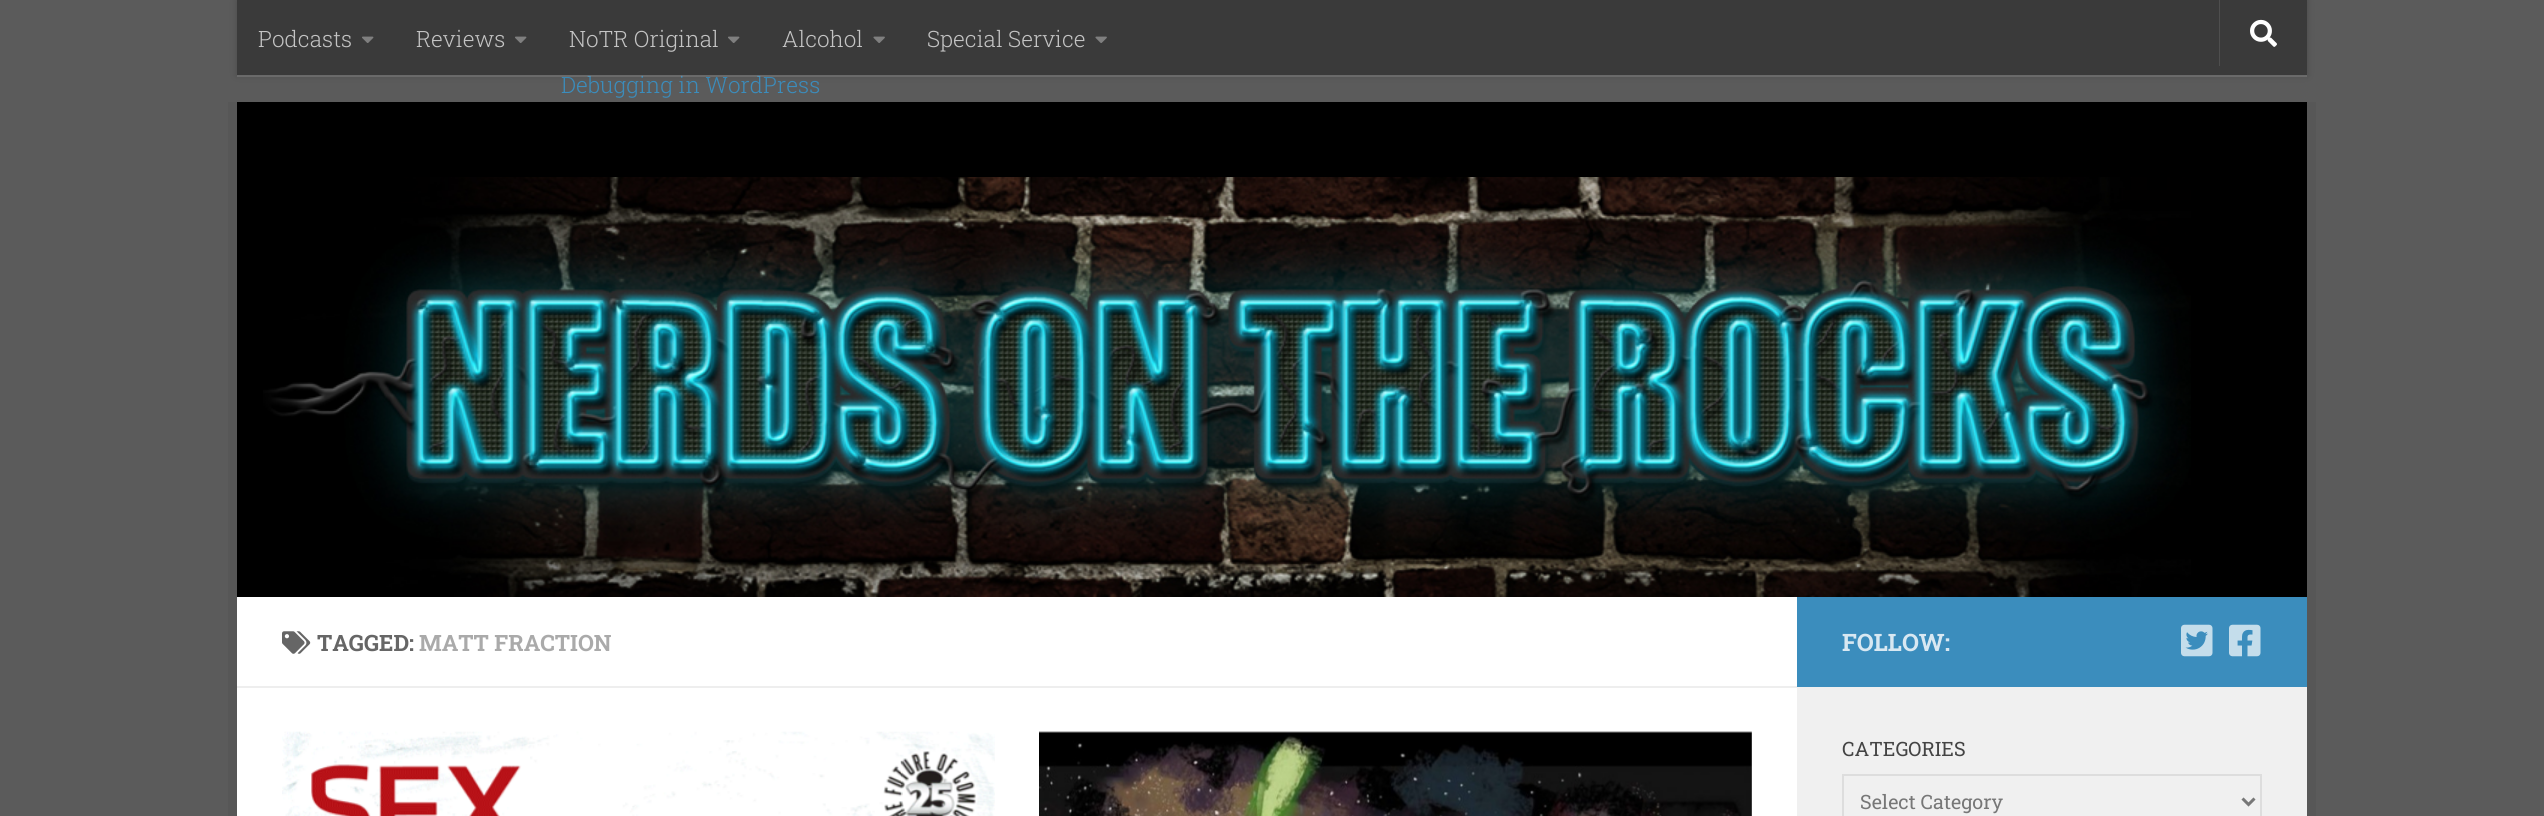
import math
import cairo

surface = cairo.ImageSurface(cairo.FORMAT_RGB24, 2544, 816)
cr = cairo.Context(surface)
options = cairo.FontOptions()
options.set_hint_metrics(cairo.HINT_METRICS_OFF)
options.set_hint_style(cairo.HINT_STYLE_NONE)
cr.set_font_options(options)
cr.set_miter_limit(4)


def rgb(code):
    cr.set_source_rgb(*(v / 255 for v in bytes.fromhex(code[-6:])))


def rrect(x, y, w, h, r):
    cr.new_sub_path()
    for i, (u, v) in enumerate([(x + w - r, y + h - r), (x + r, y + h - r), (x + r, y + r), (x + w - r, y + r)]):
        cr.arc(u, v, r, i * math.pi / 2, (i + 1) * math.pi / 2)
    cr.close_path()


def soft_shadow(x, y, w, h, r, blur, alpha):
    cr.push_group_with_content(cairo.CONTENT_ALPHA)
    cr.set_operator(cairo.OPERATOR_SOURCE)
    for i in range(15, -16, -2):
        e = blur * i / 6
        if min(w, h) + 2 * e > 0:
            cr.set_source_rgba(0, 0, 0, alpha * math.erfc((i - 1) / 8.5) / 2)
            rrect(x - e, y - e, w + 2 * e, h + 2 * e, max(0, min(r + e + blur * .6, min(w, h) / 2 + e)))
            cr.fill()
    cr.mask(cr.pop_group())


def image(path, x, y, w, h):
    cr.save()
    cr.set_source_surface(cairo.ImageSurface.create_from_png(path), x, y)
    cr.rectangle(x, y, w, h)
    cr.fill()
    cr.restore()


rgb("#5b5b5b")
cr.paint()
for x, y, w, h, color in [
    (228, 102, 9, 714, "#575757"),
    (2307, 102, 9, 714, "#575757"),
    (237, 102, 2070, 495, "#000000"),
]:
    rgb(color)
    cr.rectangle(x, y, w, h)
    cr.fill()
image("img/4.png", 263, 177, 1928, 420)
rgb("#ffffff")
cr.rectangle(237, 597, 1560, 219)
cr.fill()
rgb("#eeeeee")
cr.rectangle(237, 686, 1560, 2)
cr.fill()
image("img/5.png", 282, 631, 29, 23)
image("img/6.png", 282, 731, 713, 85)
image("img/7.png", 1039, 731, 713, 85)
rgb("#3b8dbd")
cr.rectangle(1797, 597, 510, 90)
cr.fill()
image("img/8.png", 2181, 624, 32, 33)
image("img/9.png", 2229, 624, 32, 33)
rgb("#f0f0f0")
cr.rectangle(1797, 687, 510, 129)
cr.fill()
cr.rectangle(1843, 775, 418, 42)
rgb("#dddddd")
cr.stroke()
cr.new_path()
cr.move_to(2242.5, 798.5)
cr.line_to(2248.5, 804.5)
cr.line_to(2254.5, 798.5)
rgb("#777777")
cr.set_line_width(3)
cr.stroke()
cr.select_font_face("Roboto Slab", cairo.FONT_SLANT_NORMAL, cairo.FONT_WEIGHT_BOLD)
cr.set_font_size(22.5)
rgb("#666666")
cr.move_to(317, 651)
cr.show_text("TAGGED:")
rgb("#aaaaaa")
cr.move_to(419, 651)
cr.show_text("MATT FRACTION")
cr.set_font_size(24)
rgb("#d8e8f2")
cr.move_to(1842, 651)
cr.show_text("FOLLOW:")
cr.select_font_face("Roboto Slab")
cr.set_font_size(19.75)
rgb("#444444")
cr.move_to(1842, 756)
cr.show_text("CATEGORIES")
rgb("#777777")
cr.move_to(1860, 809)
cr.show_text("Select Category")
cr.select_font_face("Roboto Slab Light")
cr.set_font_size(22.5)
rgb("#3b8dbd")
cr.move_to(561, 93)
cr.show_text("Debugging in WordPress")
cr.set_source_rgba(1, 1, 1, 0.15)
cr.rectangle(237, 75, 2070, 2)
cr.fill()
rgb("#000000")
soft_shadow(237, 0, 2070, 75, 0, 4, 0.2)
rgb("#3a3a3a")
cr.rectangle(237, 0, 2070, 75)
cr.fill()
image("img/3.png", 2250, 19, 27, 28)
rgb("#4e4e4e")
cr.rectangle(2219, 0, 1, 66)
cr.fill()
image("img/2.png", 1095, 36, 12, 7)
rgb("#c4c4c4")
cr.move_to(927, 47)
cr.show_text("Special Service")
image("img/2.png", 873, 36, 12, 7)
cr.move_to(782, 47)
cr.show_text("Alcohol")
image("img/1.png", 728, 36, 12, 7)
cr.move_to(569, 47)
cr.show_text("NoTR Original")
image("img/1.png", 515, 36, 12, 7)
cr.move_to(416, 47)
cr.show_text("Reviews")
image("img/1.png", 362, 36, 12, 7)
cr.move_to(258, 47)
cr.show_text("Podcasts")
surface.write_to_png("page.png")
